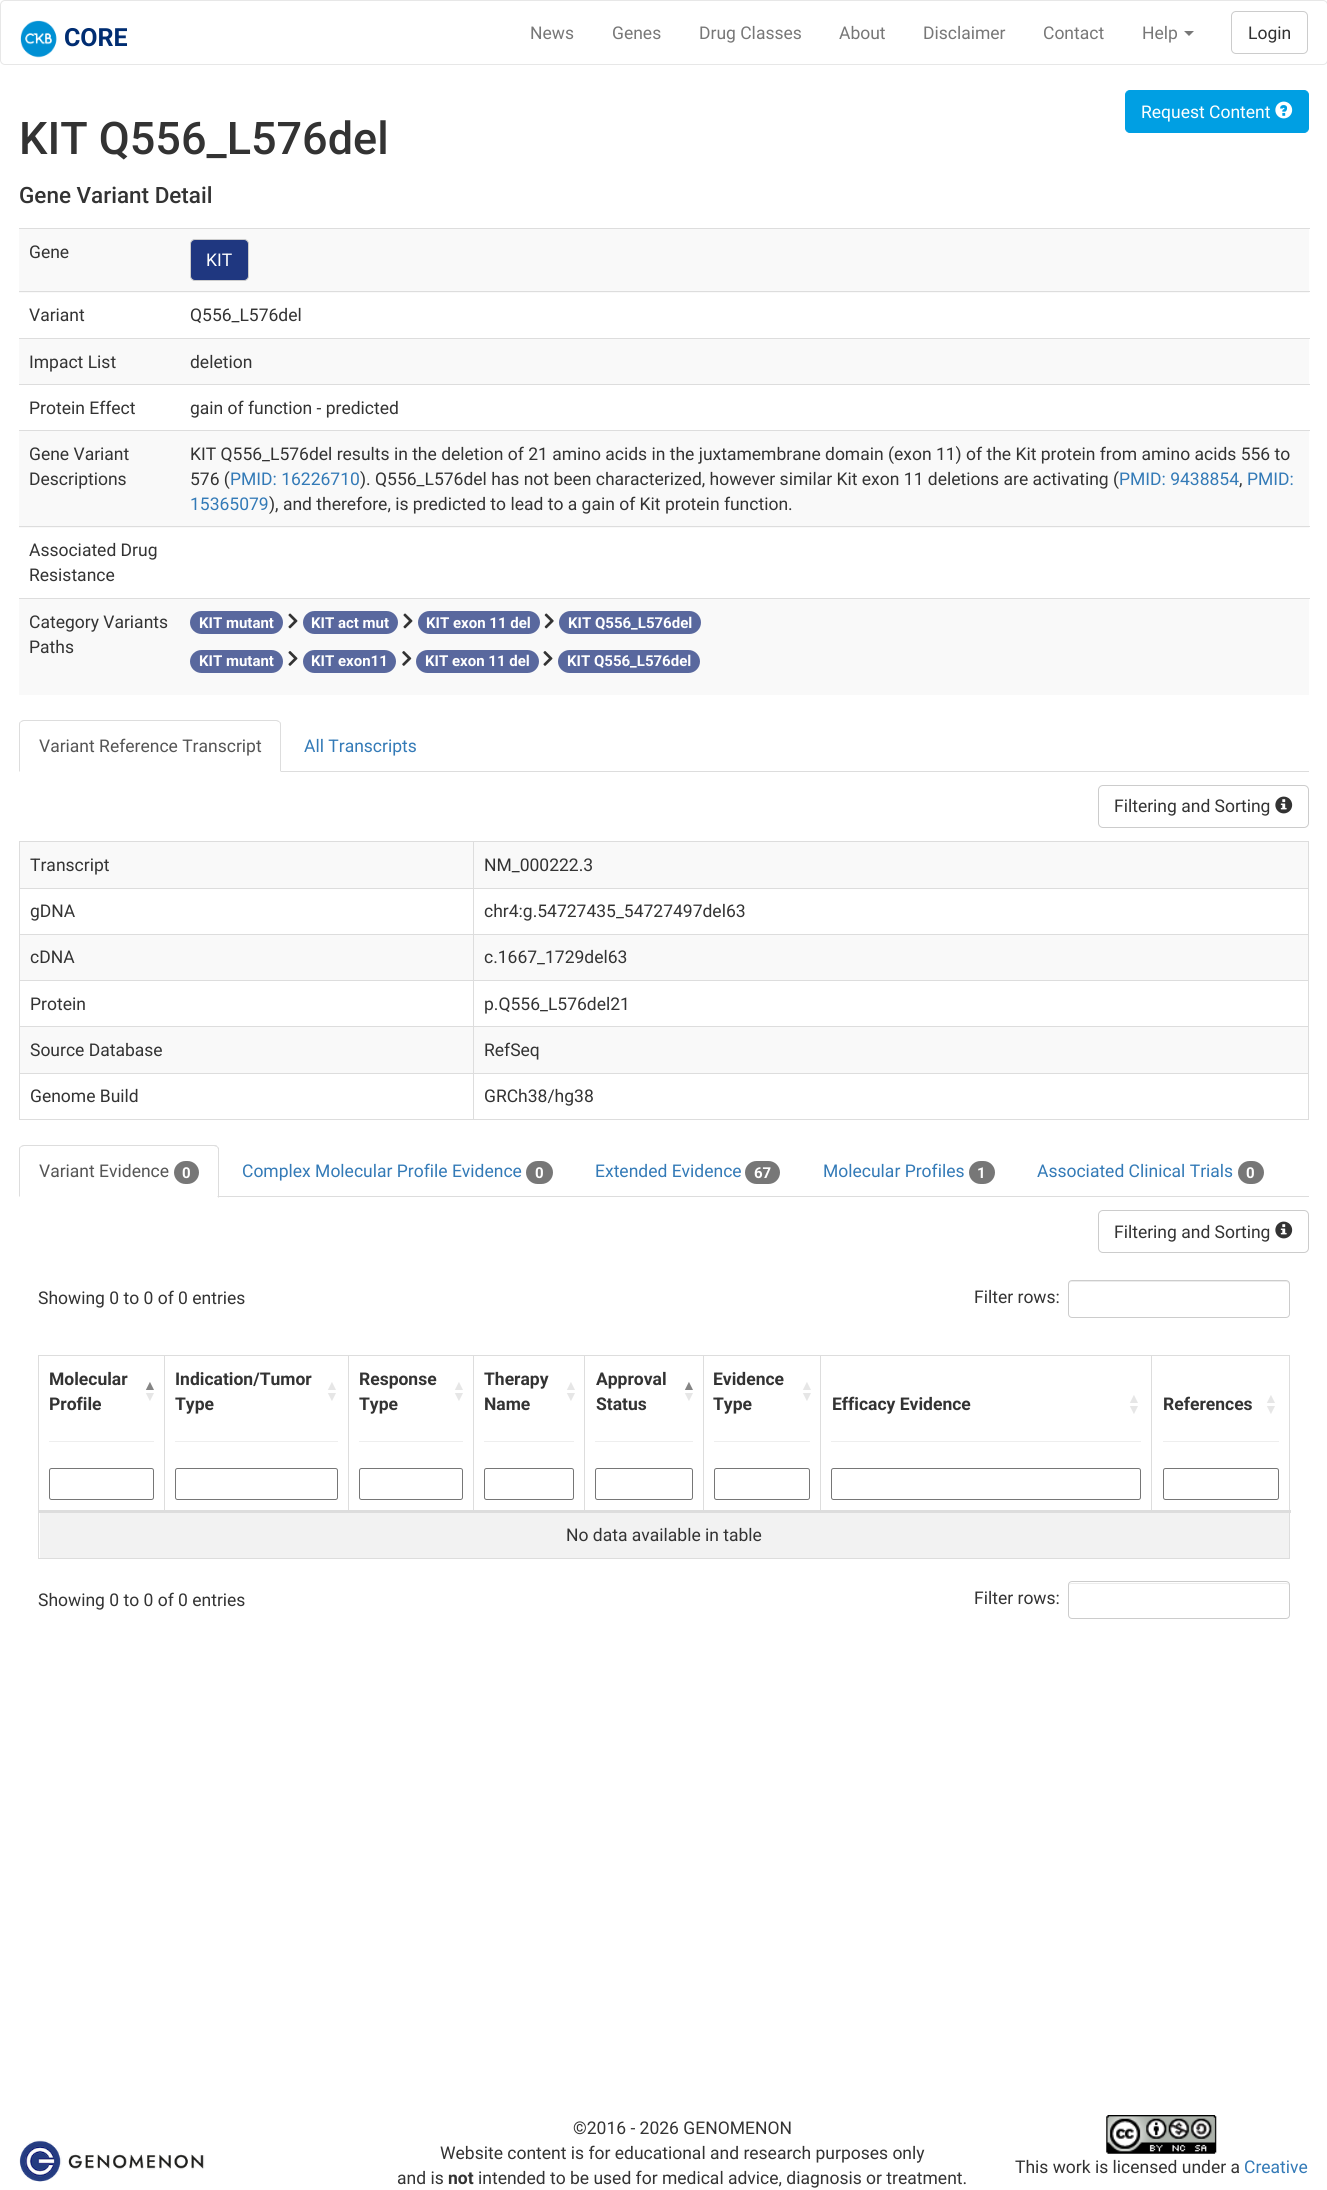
import math
import cairo

surface = cairo.ImageSurface(cairo.FORMAT_RGB24, 1327, 2190)
cr = cairo.Context(surface)
options = cairo.FontOptions()
options.set_hint_metrics(cairo.HINT_METRICS_OFF)
options.set_hint_style(cairo.HINT_STYLE_NONE)
cr.set_font_options(options)
cr.set_miter_limit(4)


def rgb(code):
    cr.set_source_rgb(*(v / 255 for v in bytes.fromhex(code[-6:])))


def rrect(x, y, w, h, r):
    cr.new_sub_path()
    for i, (u, v) in enumerate([(x + w - r, y + h - r), (x + r, y + h - r), (x + r, y + r), (x + w - r, y + r)]):
        cr.arc(u, v, r, i * math.pi / 2, (i + 1) * math.pi / 2)
    cr.close_path()


def image(path, x, y, w, h):
    cr.save()
    cr.set_source_surface(cairo.ImageSurface.create_from_png(path), x, y)
    cr.rectangle(x, y, w, h)
    cr.fill()
    cr.restore()


rgb("#ffffff")
cr.paint()
rrect(0.5, 0.5, 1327, 64, 4.5)
rgb("#e7e7e7")
cr.set_line_width(1)
cr.stroke()
image("img/1.png", 20, 20, 37, 38)
rgb("#777777")
cr.new_path()
cr.move_to(1184, 31)
cr.line_to(1194, 31)
cr.line_to(1189, 36)
cr.close_path()
cr.fill()
rrect(1231.5, 11.5, 76, 42, 4.5)
rgb("#cccccc")
cr.stroke()
rgb("#009fe3")
rrect(1125.5, 90.5, 183, 42, 4.5)
cr.fill_preserve()
cr.stroke()
image("img/2.png", 1275, 101, 18, 18)
rgb("#f9f9f9")
cr.rectangle(19, 229, 1290, 64)
cr.fill()
rgb("#dddddd")
cr.rectangle(19, 228, 1291, 1)
cr.fill()
rgb("#1f3780")
rrect(190.5, 239.5, 58, 41, 4.5)
cr.fill_preserve()
rgb("#cccccc")
cr.stroke()
for x, y, w, h, color in [
    (19, 291, 1291, 1, "#dddddd"),
    (19, 339, 1290, 45, "#f9f9f9"),
    (19, 338, 1291, 1, "#dddddd"),
    (19, 384, 1291, 1, "#dddddd"),
    (19, 431, 1290, 97, "#f9f9f9"),
    (19, 430, 1291, 1, "#dddddd"),
    (19, 526, 1291, 1, "#dddddd"),
    (19, 599, 1290, 96, "#f9f9f9"),
    (19, 598, 1291, 1, "#dddddd"),
]:
    rgb(color)
    cr.rectangle(x, y, w, h)
    cr.fill()
rgb("#59689e")
rrect(190, 611, 93, 23, 11.5)
cr.fill()
image("img/3.png", 288, 613, 10, 16)
rrect(303, 611, 95, 23, 11.5)
cr.fill()
image("img/3.png", 403, 613, 10, 16)
rrect(418, 611, 122, 23, 11.5)
cr.fill()
image("img/4.png", 544, 613, 10, 16)
rrect(559, 611, 142, 23, 11.5)
cr.fill()
rrect(190, 650, 93, 23, 11.5)
cr.fill()
image("img/5.png", 288, 651, 10, 15)
rrect(303, 650, 93, 23, 11.5)
cr.fill()
image("img/6.png", 402, 651, 10, 15)
rrect(416, 650, 123, 23, 11.5)
cr.fill()
image("img/5.png", 543, 651, 10, 15)
rrect(558, 650, 142, 23, 11.5)
cr.fill()
rgb("#dddddd")
cr.rectangle(281, 771, 1028, 1)
cr.fill()
cr.new_path()
cr.move_to(24, 720)
cr.curve_to(22, 720, 21, 721, 20, 722)
cr.line_to(21, 722)
cr.curve_to(22, 722, 23, 721, 24, 721)
cr.line_to(276, 721)
cr.curve_to(277, 721, 278, 722, 279, 722)
cr.line_to(280, 722)
cr.curve_to(279, 721, 278, 720, 276, 720)
cr.close_path()
cr.fill()
cr.new_path()
cr.move_to(280, 722)
cr.curve_to(281, 722, 281, 724, 281, 725)
cr.line_to(281, 772)
cr.line_to(280, 771)
cr.line_to(280, 725)
cr.curve_to(280, 724, 280, 723, 279, 722)
cr.close_path()
cr.fill()
cr.new_path()
cr.move_to(20, 722)
cr.curve_to(19, 722, 19, 724, 19, 725)
cr.line_to(19, 772)
cr.line_to(20, 771)
cr.line_to(20, 725)
cr.curve_to(20, 724, 20, 723, 21, 722)
cr.close_path()
cr.fill()
rrect(1098.5, 785.5, 210, 42, 4.5)
rgb("#cccccc")
cr.stroke()
image("img/7.png", 1275, 796, 18, 18)
for x, y, w, h, color in [
    (19, 841, 1290, 1, "#dddddd"),
    (1308, 841, 1, 279, "#dddddd"),
    (19, 1119, 1290, 1, "#dddddd"),
    (19, 841, 1, 279, "#dddddd"),
    (20, 842, 1288, 46, "#f9f9f9"),
    (473, 888, 836, 1, "#dddddd"),
    (473, 934, 836, 1, "#dddddd"),
    (20, 935, 1288, 45, "#f9f9f9"),
    (473, 980, 836, 1, "#dddddd"),
    (20, 1027, 1288, 46, "#f9f9f9"),
    (473, 1026, 836, 1, "#dddddd"),
    (473, 1073, 836, 1, "#dddddd"),
    (473, 1073, 1, 47, "#dddddd"),
    (19, 1073, 455, 1, "#dddddd"),
    (473, 1026, 1, 48, "#dddddd"),
    (19, 1026, 455, 1, "#dddddd"),
    (473, 980, 1, 48, "#dddddd"),
    (19, 980, 455, 1, "#dddddd"),
    (473, 934, 1, 47, "#dddddd"),
    (19, 934, 455, 1, "#dddddd"),
    (473, 888, 1, 47, "#dddddd"),
    (19, 888, 455, 1, "#dddddd"),
    (473, 841, 1, 48, "#dddddd"),
    (219, 1196, 1090, 1, "#dddddd"),
]:
    rgb(color)
    cr.rectangle(x, y, w, h)
    cr.fill()
cr.new_path()
cr.move_to(24, 1145)
cr.curve_to(22, 1145, 21, 1146, 20, 1147)
cr.line_to(21, 1147)
cr.line_to(24, 1146)
cr.line_to(214, 1146)
cr.line_to(217, 1147)
cr.line_to(217, 1146)
cr.curve_to(217, 1145, 215, 1145, 214, 1145)
cr.close_path()
cr.fill()
cr.new_path()
cr.move_to(217, 1146)
cr.line_to(219, 1148)
cr.line_to(219, 1198)
cr.line_to(217, 1196)
cr.line_to(218, 1196)
cr.line_to(218, 1149)
cr.line_to(217, 1147)
cr.close_path()
cr.fill()
cr.new_path()
cr.move_to(20, 1147)
cr.curve_to(19, 1147, 19, 1149, 19, 1150)
cr.line_to(19, 1197)
cr.line_to(20, 1196)
cr.line_to(20, 1150)
cr.curve_to(20, 1149, 20, 1148, 21, 1147)
cr.close_path()
cr.fill()
rgb("#777777")
rrect(174, 1161, 25, 23, 11.5)
cr.fill()
rrect(526, 1161, 27, 23, 11.5)
cr.fill()
rrect(745, 1161, 35, 23, 11.5)
cr.fill()
rrect(969, 1161, 26, 23, 11.5)
cr.fill()
rrect(1238, 1161, 26, 23, 11.5)
cr.fill()
rrect(1098.5, 1210.5, 210, 42, 4.5)
rgb("#cccccc")
cr.stroke()
image("img/7.png", 1275, 1221, 18, 18)
rgb("#ececec")
cr.new_path()
cr.move_to(1071, 1282)
cr.line_to(1286, 1282)
cr.curve_to(1288, 1282, 1289, 1284, 1289, 1285)
cr.line_to(1289, 1284)
cr.curve_to(1289, 1282, 1288, 1281, 1286, 1281)
cr.line_to(1072, 1281)
cr.curve_to(1070, 1281, 1069, 1282, 1069, 1284)
cr.line_to(1069, 1285)
cr.curve_to(1069, 1284, 1070, 1282, 1071, 1282)
cr.close_path()
cr.fill()
rrect(1068.5, 1280.5, 221, 37, 3.5)
rgb("#cccccc")
cr.stroke()
for x, y, w, h, color in [
    (38, 1355, 1252, 1, "#dddddd"),
    (1289, 1355, 1, 204, "#dddddd"),
    (38, 1558, 1252, 1, "#dddddd"),
    (38, 1355, 1, 204, "#dddddd"),
    (49, 1441, 105, 1, "#eeeeee"),
]:
    rgb(color)
    cr.rectangle(x, y, w, h)
    cr.fill()
rrect(49.5, 1468.5, 104, 31, 2)
rgb("#767676")
cr.stroke()
rgb("#dddddd")
cr.rectangle(164, 1355, 1, 158)
cr.fill()
rgb("#eeeeee")
cr.rectangle(175, 1441, 163, 1)
cr.fill()
rrect(175.5, 1468.5, 162, 31, 2)
rgb("#767676")
cr.stroke()
rgb("#dddddd")
cr.rectangle(348, 1355, 1, 158)
cr.fill()
rgb("#eeeeee")
cr.rectangle(359, 1441, 104, 1)
cr.fill()
rrect(359.5, 1468.5, 103, 31, 2)
rgb("#767676")
cr.stroke()
rgb("#dddddd")
cr.rectangle(473, 1355, 1, 158)
cr.fill()
rgb("#eeeeee")
cr.rectangle(484, 1441, 90, 1)
cr.fill()
rrect(484.5, 1468.5, 89, 31, 2)
rgb("#767676")
cr.stroke()
rgb("#dddddd")
cr.rectangle(584, 1355, 1, 158)
cr.fill()
rgb("#eeeeee")
cr.rectangle(595, 1441, 98, 1)
cr.fill()
rrect(595.5, 1468.5, 97, 31, 2)
rgb("#767676")
cr.stroke()
rgb("#dddddd")
cr.rectangle(703, 1355, 1, 158)
cr.fill()
rgb("#eeeeee")
cr.rectangle(714, 1441, 96, 1)
cr.fill()
rrect(714.5, 1468.5, 95, 31, 2)
rgb("#767676")
cr.stroke()
rgb("#dddddd")
cr.rectangle(820, 1355, 1, 158)
cr.fill()
rgb("#eeeeee")
cr.rectangle(831, 1441, 310, 1)
cr.fill()
rrect(831.5, 1468.5, 309, 31, 2)
rgb("#767676")
cr.stroke()
for x, y, w, h, color in [
    (1151, 1355, 1, 158, "#dddddd"),
    (38, 1510, 1253, 3, "#dddddd"),
    (1163, 1441, 116, 1, "#eeeeee"),
]:
    rgb(color)
    cr.rectangle(x, y, w, h)
    cr.fill()
rrect(1163.5, 1468.5, 115, 31, 2)
rgb("#767676")
cr.stroke()
rgb("#f2f2f2")
cr.rectangle(40, 1513, 1249, 45)
cr.fill()
rgb("#ececec")
cr.new_path()
cr.move_to(1071, 1584)
cr.line_to(1286, 1584)
cr.curve_to(1288, 1584, 1289, 1585, 1289, 1586)
cr.curve_to(1289, 1584, 1288, 1583, 1286, 1583)
cr.line_to(1072, 1583)
cr.curve_to(1070, 1583, 1069, 1584, 1069, 1586)
cr.curve_to(1069, 1585, 1070, 1584, 1071, 1584)
cr.close_path()
cr.fill()
rrect(1068.5, 1581.5, 221, 37, 3.5)
rgb("#cccccc")
cr.stroke()
image("img/8.png", 19, 2140, 186, 42)
image("img/9.png", 1106, 2115, 111, 39)
cr.select_font_face("Roboto", cairo.FONT_SLANT_NORMAL, cairo.FONT_WEIGHT_BOLD)
cr.set_font_size(25)
rgb("#002d72")
cr.move_to(64, 46)
cr.show_text("CORE")
cr.select_font_face("Roboto")
cr.set_font_size(17.5)
rgb("#777777")
for x, y, s in [
    (530, 39, "News"),
    (612, 39, "Genes"),
    (699, 39, "Drug Classes"),
    (839, 39, "About"),
    (923, 39, "Disclaimer"),
    (1043, 39, "Contact"),
    (1142, 39, "Help"),
]:
    cr.move_to(x, y)
    cr.show_text(s)
rgb("#333333")
cr.move_to(1248, 39)
cr.show_text("Login")
rgb("#ffffff")
cr.move_to(1141, 118)
cr.show_text("Request Content")
cr.select_font_face("Roboto Medium")
cr.set_font_size(45)
rgb("#333333")
cr.move_to(19, 154)
cr.show_text("KIT Q556_L576del")
cr.set_font_size(22.5)
cr.move_to(19, 203)
cr.show_text("Gene Variant Detail")
cr.select_font_face("Roboto")
cr.set_font_size(17.5)
cr.move_to(29, 258)
cr.show_text("Gene")
rgb("#ffffff")
cr.move_to(206, 266)
cr.show_text("KIT")
rgb("#333333")
for x, y, s in [
    (29, 321, "Variant"),
    (190, 321, "Q556_L576del"),
    (29, 368, "Impact List"),
    (190, 368, "deletion"),
    (29, 414, "Protein Effect"),
    (190, 414, "gain of function - predicted"),
    (29, 460, "Gene Variant"),
    (29, 485, "Descriptions"),
    (190, 460, "KIT Q556_L576del results in the deletion of 21 amino acids in the juxtamembrane domain (exon 11) of the Kit protein from amino acids 556 to"),
    (190, 485, "576 ("),
]:
    cr.move_to(x, y)
    cr.show_text(s)
rgb("#337ab7")
cr.move_to(230, 485)
cr.show_text("PMID: 16226710")
rgb("#333333")
cr.move_to(360, 485)
cr.show_text("). Q556_L576del has not been characterized, however similar Kit exon 11 deletions are activating (")
rgb("#337ab7")
cr.move_to(1119, 485)
cr.show_text("PMID: 9438854")
rgb("#333333")
cr.move_to(1239, 485)
cr.show_text(",")
rgb("#337ab7")
cr.move_to(1247, 485)
cr.show_text("PMID:")
cr.move_to(190, 510)
cr.show_text("15365079")
rgb("#333333")
for x, y, s in [
    (269, 510, "), and therefore, is predicted to lead to a gain of Kit protein function."),
    (29, 556, "Associated Drug"),
    (29, 581, "Resistance"),
    (29, 628, "Category Variants"),
    (29, 653, "Paths"),
]:
    cr.move_to(x, y)
    cr.show_text(s)
cr.select_font_face("Roboto", cairo.FONT_SLANT_NORMAL, cairo.FONT_WEIGHT_BOLD)
cr.set_font_size(15)
rgb("#ffffff")
for x, y, s in [
    (199, 628, "KIT mutant"),
    (311, 628, "KIT act mut"),
    (426, 628, "KIT exon 11 del"),
    (568, 628, "KIT Q556_L576del"),
    (199, 666, "KIT mutant"),
    (311, 666, "KIT exon11"),
    (425, 666, "KIT exon 11 del"),
    (567, 666, "KIT Q556_L576del"),
]:
    cr.move_to(x, y)
    cr.show_text(s)
cr.select_font_face("Roboto")
cr.set_font_size(17.5)
rgb("#555555")
cr.move_to(39, 752)
cr.show_text("Variant Reference Transcript")
rgb("#337ab7")
cr.move_to(304, 752)
cr.show_text("All Transcripts")
rgb("#333333")
for x, y, s in [
    (1114, 812, "Filtering and Sorting"),
    (30, 871, "Transcript"),
    (484, 871, "NM_000222.3"),
    (30, 917, "gDNA"),
    (484, 917, "chr4:g.54727435_54727497del63"),
    (30, 963, "cDNA"),
    (484, 963, "c.1667_1729del63"),
    (30, 1010, "Protein"),
    (484, 1010, "p.Q556_L576del21"),
    (30, 1056, "Source Database"),
    (484, 1056, "RefSeq"),
    (30, 1102, "Genome Build"),
    (484, 1102, "GRCh38/hg38"),
]:
    cr.move_to(x, y)
    cr.show_text(s)
rgb("#555555")
cr.move_to(39, 1177)
cr.show_text("Variant Evidence")
cr.select_font_face("Roboto", cairo.FONT_SLANT_NORMAL, cairo.FONT_WEIGHT_BOLD)
cr.set_font_size(15)
rgb("#ffffff")
cr.move_to(182, 1178)
cr.show_text("0")
cr.select_font_face("Roboto")
cr.set_font_size(17.5)
rgb("#337ab7")
cr.move_to(242, 1177)
cr.show_text("Complex Molecular Profile Evidence")
cr.select_font_face("Roboto", cairo.FONT_SLANT_NORMAL, cairo.FONT_WEIGHT_BOLD)
cr.set_font_size(15)
rgb("#ffffff")
cr.move_to(535, 1178)
cr.show_text("0")
cr.select_font_face("Roboto")
cr.set_font_size(17.5)
rgb("#337ab7")
cr.move_to(595, 1177)
cr.show_text("Extended Evidence")
cr.select_font_face("Roboto", cairo.FONT_SLANT_NORMAL, cairo.FONT_WEIGHT_BOLD)
cr.set_font_size(15)
rgb("#ffffff")
cr.move_to(754, 1178)
cr.show_text("67")
cr.select_font_face("Roboto")
cr.set_font_size(17.5)
rgb("#337ab7")
cr.move_to(823, 1177)
cr.show_text("Molecular Profiles")
cr.select_font_face("Roboto", cairo.FONT_SLANT_NORMAL, cairo.FONT_WEIGHT_BOLD)
cr.set_font_size(15)
rgb("#ffffff")
cr.move_to(977, 1178)
cr.show_text("1")
cr.select_font_face("Roboto")
cr.set_font_size(17.5)
rgb("#337ab7")
cr.move_to(1037, 1177)
cr.show_text("Associated Clinical Trials")
cr.select_font_face("Roboto", cairo.FONT_SLANT_NORMAL, cairo.FONT_WEIGHT_BOLD)
cr.set_font_size(15)
rgb("#ffffff")
cr.move_to(1246, 1178)
cr.show_text("0")
cr.select_font_face("Roboto")
cr.set_font_size(17.5)
rgb("#333333")
for x, y, s in [
    (1114, 1238, "Filtering and Sorting"),
    (38, 1304, "Showing 0 to 0 of 0 entries"),
    (974, 1303, "Filter rows:"),
]:
    cr.move_to(x, y)
    cr.show_text(s)
cr.select_font_face("Roboto", cairo.FONT_SLANT_NORMAL, cairo.FONT_WEIGHT_BOLD)
cr.move_to(49, 1385)
cr.show_text("Molecular")
cr.move_to(49, 1410)
cr.show_text("Profile")
cr.select_font_face("Liberation Sans", cairo.FONT_SLANT_NORMAL, cairo.FONT_WEIGHT_BOLD)
cr.set_font_size(14)
rgb("#858585")
cr.move_to(143, 1390)
cr.show_text("▲")
rgb("#e6e6e6")
cr.move_to(143, 1401)
cr.show_text("▼")
cr.select_font_face("Roboto", cairo.FONT_SLANT_NORMAL, cairo.FONT_WEIGHT_BOLD)
cr.set_font_size(17.5)
rgb("#333333")
cr.move_to(175, 1385)
cr.show_text("Indication/Tumor")
cr.move_to(175, 1410)
cr.show_text("Type")
cr.select_font_face("Liberation Sans", cairo.FONT_SLANT_NORMAL, cairo.FONT_WEIGHT_BOLD)
cr.set_font_size(14)
rgb("#e6e6e6")
cr.move_to(325, 1390)
cr.show_text("▲")
cr.move_to(325, 1401)
cr.show_text("▼")
cr.select_font_face("Roboto", cairo.FONT_SLANT_NORMAL, cairo.FONT_WEIGHT_BOLD)
cr.set_font_size(17.5)
rgb("#333333")
cr.move_to(359, 1385)
cr.show_text("Response")
cr.move_to(359, 1410)
cr.show_text("Type")
cr.select_font_face("Liberation Sans", cairo.FONT_SLANT_NORMAL, cairo.FONT_WEIGHT_BOLD)
cr.set_font_size(14)
rgb("#e6e6e6")
cr.move_to(452, 1390)
cr.show_text("▲")
cr.move_to(452, 1401)
cr.show_text("▼")
cr.select_font_face("Roboto", cairo.FONT_SLANT_NORMAL, cairo.FONT_WEIGHT_BOLD)
cr.set_font_size(17.5)
rgb("#333333")
cr.move_to(484, 1385)
cr.show_text("Therapy")
cr.move_to(484, 1410)
cr.show_text("Name")
cr.select_font_face("Liberation Sans", cairo.FONT_SLANT_NORMAL, cairo.FONT_WEIGHT_BOLD)
cr.set_font_size(14)
rgb("#e6e6e6")
cr.move_to(564, 1390)
cr.show_text("▲")
cr.move_to(564, 1401)
cr.show_text("▼")
cr.select_font_face("Roboto", cairo.FONT_SLANT_NORMAL, cairo.FONT_WEIGHT_BOLD)
cr.set_font_size(17.5)
rgb("#333333")
cr.move_to(596, 1385)
cr.show_text("Approval")
cr.move_to(596, 1410)
cr.show_text("Status")
cr.select_font_face("Liberation Sans", cairo.FONT_SLANT_NORMAL, cairo.FONT_WEIGHT_BOLD)
cr.set_font_size(14)
rgb("#858585")
cr.move_to(682, 1390)
cr.show_text("▲")
rgb("#e6e6e6")
cr.move_to(682, 1401)
cr.show_text("▼")
cr.select_font_face("Roboto", cairo.FONT_SLANT_NORMAL, cairo.FONT_WEIGHT_BOLD)
cr.set_font_size(17.5)
rgb("#333333")
cr.move_to(713, 1385)
cr.show_text("Evidence")
cr.move_to(713, 1410)
cr.show_text("Type")
cr.select_font_face("Liberation Sans", cairo.FONT_SLANT_NORMAL, cairo.FONT_WEIGHT_BOLD)
cr.set_font_size(14)
rgb("#e6e6e6")
cr.move_to(800, 1390)
cr.show_text("▲")
cr.move_to(800, 1401)
cr.show_text("▼")
cr.select_font_face("Roboto", cairo.FONT_SLANT_NORMAL, cairo.FONT_WEIGHT_BOLD)
cr.set_font_size(17.5)
rgb("#333333")
cr.move_to(832, 1410)
cr.show_text("Efficacy Evidence")
cr.select_font_face("Liberation Sans", cairo.FONT_SLANT_NORMAL, cairo.FONT_WEIGHT_BOLD)
cr.set_font_size(14)
rgb("#e6e6e6")
cr.move_to(1127, 1403)
cr.show_text("▲")
cr.move_to(1127, 1414)
cr.show_text("▼")
cr.select_font_face("Roboto", cairo.FONT_SLANT_NORMAL, cairo.FONT_WEIGHT_BOLD)
cr.set_font_size(17.5)
rgb("#333333")
cr.move_to(1163, 1410)
cr.show_text("References")
cr.select_font_face("Liberation Sans", cairo.FONT_SLANT_NORMAL, cairo.FONT_WEIGHT_BOLD)
cr.set_font_size(14)
rgb("#e6e6e6")
cr.move_to(1264, 1403)
cr.show_text("▲")
cr.move_to(1264, 1414)
cr.show_text("▼")
cr.select_font_face("Roboto")
cr.set_font_size(17.5)
rgb("#333333")
for x, y, s in [
    (566, 1541, "No data available in table"),
    (38, 1606, "Showing 0 to 0 of 0 entries"),
    (974, 1604, "Filter rows:"),
    (573, 2134, "©2016 - 2026 GENOMENON"),
    (440, 2159, "Website content is for educational and research purposes only"),
    (397, 2184, "and is"),
]:
    cr.move_to(x, y)
    cr.show_text(s)
cr.select_font_face("Roboto", cairo.FONT_SLANT_NORMAL, cairo.FONT_WEIGHT_BOLD)
cr.move_to(448, 2184)
cr.show_text("not")
cr.select_font_face("Roboto")
cr.move_to(478, 2184)
cr.show_text("intended to be used for medical advice, diagnosis or treatment.")
cr.move_to(1015, 2173)
cr.show_text("This work is licensed under a")
rgb("#337ab7")
cr.move_to(1244, 2173)
cr.show_text("Creative")
surface.write_to_png("page.png")
